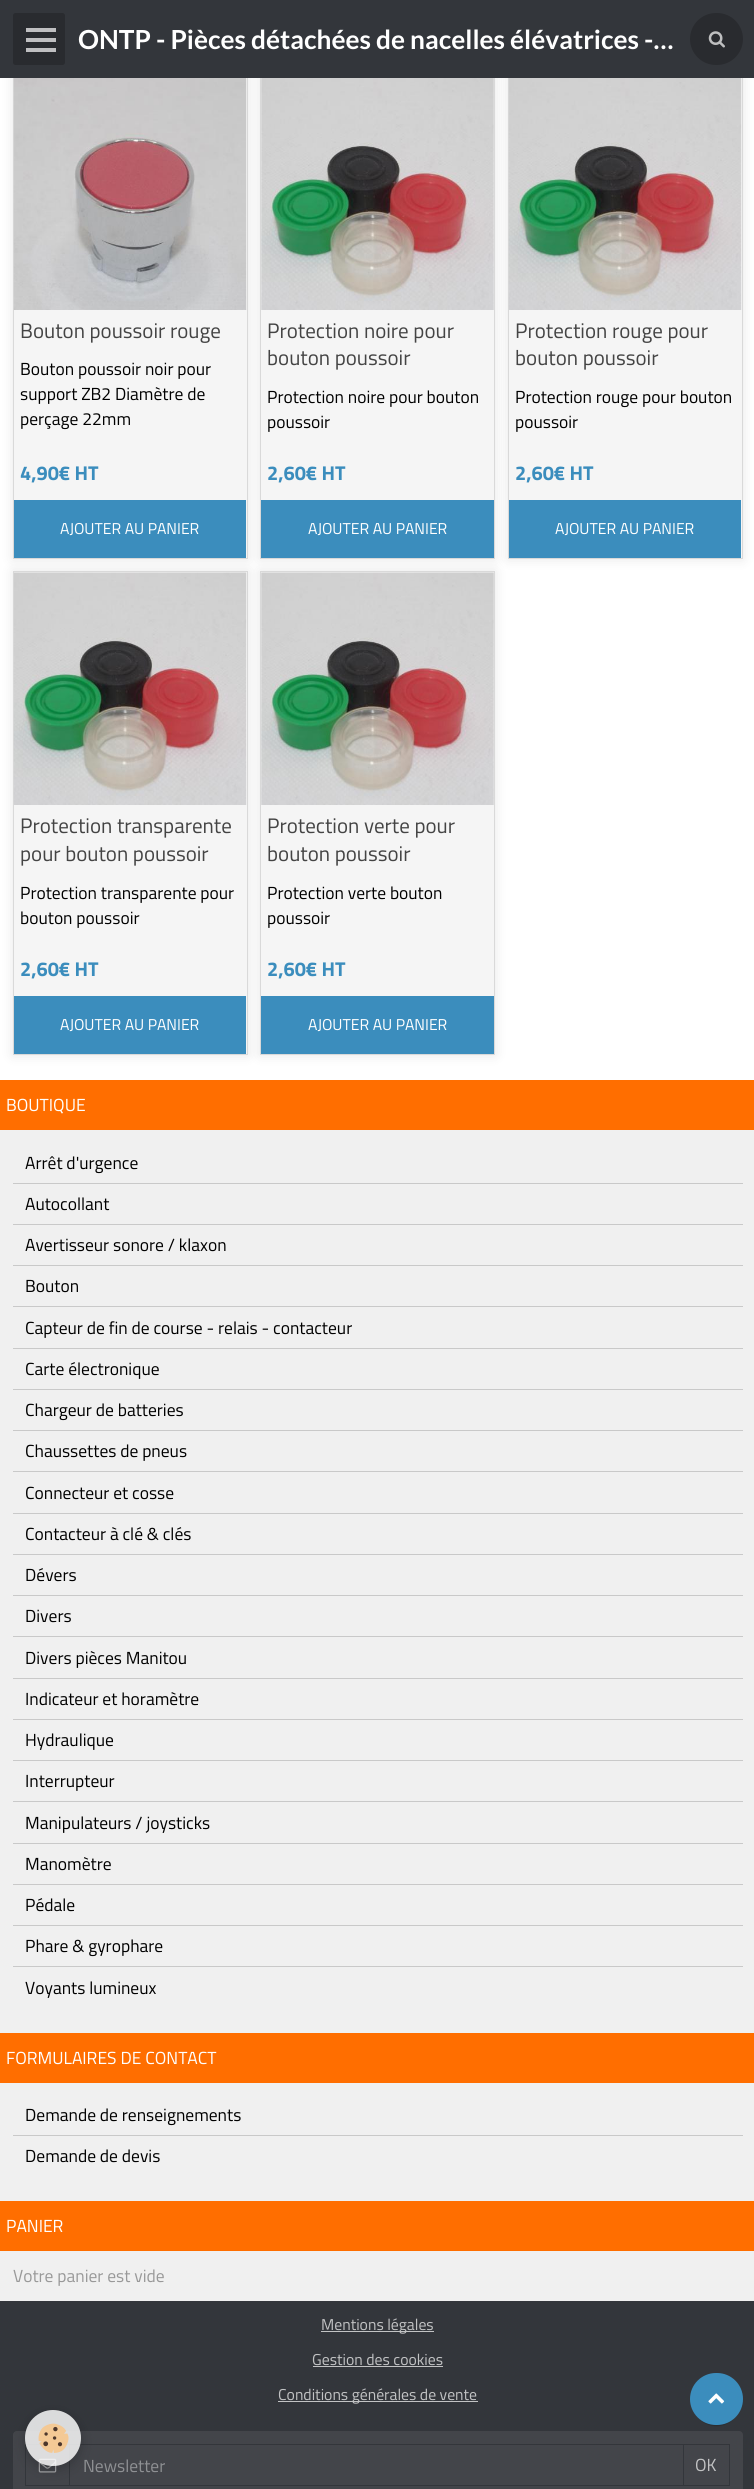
import math
import cairo

surface = cairo.ImageSurface(cairo.FORMAT_RGB24, 754, 2489)
cr = cairo.Context(surface)
options = cairo.FontOptions()
options.set_hint_metrics(cairo.HINT_METRICS_OFF)
options.set_hint_style(cairo.HINT_STYLE_NONE)
cr.set_font_options(options)
cr.set_miter_limit(4)


def rgb(code):
    cr.set_source_rgb(*(v / 255 for v in bytes.fromhex(code[-6:])))


def rrect(x, y, w, h, r):
    cr.new_sub_path()
    for i, (u, v) in enumerate([(x + w - r, y + h - r), (x + r, y + h - r), (x + r, y + r), (x + w - r, y + r)]):
        cr.arc(u, v, r, i * math.pi / 2, (i + 1) * math.pi / 2)
    cr.close_path()


def soft_shadow(x, y, w, h, r, blur, alpha):
    cr.push_group_with_content(cairo.CONTENT_ALPHA)
    cr.set_operator(cairo.OPERATOR_SOURCE)
    for i in range(15, -16, -2):
        e = blur * i / 6
        if min(w, h) + 2 * e > 0:
            cr.set_source_rgba(0, 0, 0, alpha * math.erfc((i - 1) / 8.5) / 2)
            rrect(x - e, y - e, w + 2 * e, h + 2 * e, max(0, min(r + e + blur * .6, min(w, h) / 2 + e)))
            cr.fill()
    cr.mask(cr.pop_group())


def image(path, x, y, w, h):
    cr.save()
    cr.set_source_surface(cairo.ImageSurface.create_from_png(path), x, y)
    cr.rectangle(x, y, w, h)
    cr.fill()
    cr.restore()


rgb("#ffffff")
cr.paint()
rgb("#000000")
soft_shadow(13, 76, 235, 483, 0, 6, 0.1)
rgb("#f5f5f5")
cr.rectangle(14, 78, 233, 480)
cr.fill()
cr.rectangle(13.5, 76.5, 234, 482)
rgb("#d9d9d9")
cr.set_line_width(1)
cr.stroke()
image("img/2.png", 13, 78, 234, 232)
rgb("#3b8dbd")
cr.rectangle(14, 500, 232, 58)
cr.fill()
rgb("#000000")
soft_shadow(260, 76, 235, 483, 0, 6, 0.1)
rgb("#f5f5f5")
cr.rectangle(261, 78, 233, 422)
cr.fill()
cr.rectangle(260.5, 76.5, 234, 482)
rgb("#d9d9d9")
cr.stroke()
image("img/3.png", 261, 78, 233, 232)
rgb("#3b8dbd")
cr.rectangle(261, 500, 233, 58)
cr.fill()
rgb("#000000")
soft_shadow(508, 76, 235, 483, 0, 6, 0.1)
rgb("#f5f5f5")
cr.rectangle(509, 78, 233, 480)
cr.fill()
cr.rectangle(508.5, 76.5, 234, 482)
rgb("#d9d9d9")
cr.stroke()
rgb("#33363b")
cr.rectangle(0, 0, 754, 78)
cr.fill()
rgb("#292b2f")
rrect(13, 13, 52, 52, 2.5)
cr.fill()
for x, y, w, h, color in [
    (26, 38, 30, 4, "#bfbfc1"),
    (26, 28, 30, 4, "#bfbfc1"),
    (26, 48, 30, 4, "#bfbfc1"),
]:
    rgb(color)
    cr.rectangle(x, y, w, h)
    cr.fill()
rgb("#292b2f")
rrect(690, 13, 53, 52, 26)
cr.fill()
image("img/1.png", 708, 31, 17, 17)
image("img/4.png", 508, 78, 234, 232)
rgb("#3b8dbd")
cr.rectangle(509, 500, 232, 58)
cr.fill()
rgb("#000000")
soft_shadow(13, 571, 235, 484, 0, 6, 0.1)
rgb("#f5f5f5")
cr.rectangle(13.5, 571.5, 234, 483)
cr.fill_preserve()
rgb("#d9d9d9")
cr.stroke()
image("img/5.png", 13, 572, 234, 233)
rgb("#3b8dbd")
cr.rectangle(14, 996, 232, 58)
cr.fill()
rgb("#000000")
soft_shadow(260, 571, 235, 484, 0, 6, 0.1)
rgb("#f5f5f5")
cr.rectangle(261, 572, 233, 424)
cr.fill()
cr.rectangle(260.5, 571.5, 234, 483)
rgb("#d9d9d9")
cr.stroke()
image("img/6.png", 261, 572, 233, 233)
for x, y, w, h, color in [
    (261, 996, 233, 58, "#3b8dbd"),
    (0, 1130, 754, 1171, "#f0f0f0"),
    (0, 1080, 754, 50, "#ff6e00"),
    (13, 1183, 730, 1, "#c9c9c9"),
    (13, 1224, 730, 1, "#c9c9c9"),
    (13, 1265, 730, 1, "#c9c9c9"),
    (13, 1306, 730, 1, "#c9c9c9"),
    (13, 1348, 730, 1, "#c9c9c9"),
    (13, 1389, 730, 1, "#c9c9c9"),
    (13, 1430, 730, 1, "#c9c9c9"),
    (13, 1471, 730, 1, "#c9c9c9"),
    (13, 1513, 730, 1, "#c9c9c9"),
    (13, 1554, 730, 1, "#c9c9c9"),
    (13, 1595, 730, 1, "#c9c9c9"),
    (13, 1636, 730, 1, "#c9c9c9"),
    (13, 1678, 730, 1, "#c9c9c9"),
    (13, 1719, 730, 1, "#c9c9c9"),
    (13, 1760, 730, 1, "#c9c9c9"),
    (13, 1801, 730, 1, "#c9c9c9"),
    (13, 1843, 730, 1, "#c9c9c9"),
    (13, 1884, 730, 1, "#c9c9c9"),
    (13, 1925, 730, 1, "#c9c9c9"),
    (13, 1966, 730, 1, "#c9c9c9"),
    (0, 2033, 754, 50, "#ff6e00"),
    (13, 2135, 730, 1, "#c9c9c9"),
    (0, 2201, 754, 50, "#ff6e00"),
    (0, 2301, 754, 188, "#33363b"),
]:
    rgb(color)
    cr.rectangle(x, y, w, h)
    cr.fill()
rgb("#43454a")
rrect(13, 2431, 730, 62, 4)
cr.fill()
cr.rectangle(25.5, 2444.5, 44, 41)
rgb("#33363b")
cr.stroke()
image("img/8.png", 38, 2458, 19, 15)
cr.rectangle(69.5, 2444.5, 614, 41)
cr.stroke()
cr.save()
cr.set_fill_rule(cairo.FILL_RULE_EVEN_ODD)
cr.new_path()
cr.move_to(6, 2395)
cr.line_to(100, 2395)
cr.line_to(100, 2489)
cr.line_to(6, 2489)
cr.close_path()
cr.move_to(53, 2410)
cr.curve_to(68.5, 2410, 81, 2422.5, 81, 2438)
cr.curve_to(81, 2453.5, 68.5, 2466, 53, 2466)
cr.curve_to(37.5, 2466, 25, 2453.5, 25, 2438)
cr.curve_to(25, 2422.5, 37.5, 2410, 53, 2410)
cr.close_path()
cr.clip()
rgb("#000000")
soft_shadow(25, 2414, 56, 56, 28, 6, 0.2)
cr.restore()
cr.set_source_rgba(1, 1, 1, 0.82)
cr.arc(53, 2438, 28, 0, 2 * math.pi)
cr.fill()
image("img/7.png", 38, 2423, 31, 30)
for x, y, w, h, color in [
    (321, 2331, 113, 1, "#c2c3c4"),
    (313, 2366, 130, 1, "#c2c3c4"),
    (278, 2401, 200, 1, "#c2c3c4"),
    (683, 2444, 47, 1, "#33363b"),
    (729, 2444, 1, 42, "#33363b"),
    (683, 2485, 47, 1, "#33363b"),
]:
    rgb(color)
    cr.rectangle(x, y, w, h)
    cr.fill()
rgb("#000000")
soft_shadow(693, 2379, 47, 47, 23.5, 0.5, 0.2)
rgb("#3b8dbd")
rrect(690, 2373, 53, 52, 26)
cr.fill()
image("img/9.png", 708, 2393, 17, 11)
cr.select_font_face("Lato", cairo.FONT_SLANT_NORMAL, cairo.FONT_WEIGHT_BOLD)
cr.set_font_size(26.25)
rgb("#ffffff")
cr.move_to(78, 49)
cr.show_text("ONTP - Pièces détachées de nacelles élévatrices -…")
cr.select_font_face("Titillium Web")
cr.set_font_size(21)
rgb("#444444")
cr.move_to(20, 338)
cr.show_text("Bouton poussoir rouge")
cr.set_font_size(17.5)
rgb("#000000")
for x, y, s in [
    (20, 375, "Bouton poussoir noir pour"),
    (20, 400, "support ZB2 Diamètre de"),
    (20, 425, "perçage 22mm"),
]:
    cr.move_to(x, y)
    cr.show_text(s)
cr.select_font_face("Titillium Web", cairo.FONT_SLANT_NORMAL, cairo.FONT_WEIGHT_BOLD)
cr.set_font_size(20)
rgb("#3b8dbd")
cr.move_to(20, 480)
cr.show_text("4,90€ HT")
cr.select_font_face("Titillium Web")
cr.set_font_size(15.75)
rgb("#ffffff")
cr.move_to(60, 534)
cr.show_text("AJOUTER AU PANIER")
cr.set_font_size(21)
rgb("#444444")
cr.move_to(267, 338)
cr.show_text("Protection noire pour")
cr.move_to(267, 365)
cr.show_text("bouton poussoir")
cr.set_font_size(17.5)
rgb("#000000")
cr.move_to(267, 403)
cr.show_text("Protection noire pour bouton")
cr.move_to(267, 428)
cr.show_text("poussoir")
cr.select_font_face("Titillium Web", cairo.FONT_SLANT_NORMAL, cairo.FONT_WEIGHT_BOLD)
cr.set_font_size(20)
rgb("#3b8dbd")
cr.move_to(267, 480)
cr.show_text("2,60€ HT")
cr.select_font_face("Titillium Web")
cr.set_font_size(15.75)
rgb("#ffffff")
cr.move_to(308, 534)
cr.show_text("AJOUTER AU PANIER")
cr.set_font_size(21)
rgb("#444444")
cr.move_to(515, 338)
cr.show_text("Protection rouge pour")
cr.move_to(515, 365)
cr.show_text("bouton poussoir")
cr.set_font_size(17.5)
rgb("#000000")
cr.move_to(515, 403)
cr.show_text("Protection rouge pour bouton")
cr.move_to(515, 428)
cr.show_text("poussoir")
cr.select_font_face("Titillium Web", cairo.FONT_SLANT_NORMAL, cairo.FONT_WEIGHT_BOLD)
cr.set_font_size(20)
rgb("#3b8dbd")
cr.move_to(515, 480)
cr.show_text("2,60€ HT")
cr.select_font_face("Titillium Web")
cr.set_font_size(15.75)
rgb("#ffffff")
cr.move_to(555, 534)
cr.show_text("AJOUTER AU PANIER")
cr.set_font_size(21)
rgb("#444444")
cr.move_to(20, 833)
cr.show_text("Protection transparente")
cr.move_to(20, 861)
cr.show_text("pour bouton poussoir")
cr.set_font_size(17.5)
rgb("#000000")
cr.move_to(20, 899)
cr.show_text("Protection transparente pour")
cr.move_to(20, 924)
cr.show_text("bouton poussoir")
cr.select_font_face("Titillium Web", cairo.FONT_SLANT_NORMAL, cairo.FONT_WEIGHT_BOLD)
cr.set_font_size(20)
rgb("#3b8dbd")
cr.move_to(20, 976)
cr.show_text("2,60€ HT")
cr.select_font_face("Titillium Web")
cr.set_font_size(15.75)
rgb("#ffffff")
cr.move_to(60, 1030)
cr.show_text("AJOUTER AU PANIER")
cr.set_font_size(21)
rgb("#444444")
cr.move_to(267, 833)
cr.show_text("Protection verte pour")
cr.move_to(267, 861)
cr.show_text("bouton poussoir")
cr.set_font_size(17.5)
rgb("#000000")
cr.move_to(267, 899)
cr.show_text("Protection verte bouton")
cr.move_to(267, 924)
cr.show_text("poussoir")
cr.select_font_face("Titillium Web", cairo.FONT_SLANT_NORMAL, cairo.FONT_WEIGHT_BOLD)
cr.set_font_size(20)
rgb("#3b8dbd")
cr.move_to(267, 976)
cr.show_text("2,60€ HT")
cr.select_font_face("Titillium Web")
cr.set_font_size(15.75)
rgb("#ffffff")
cr.move_to(308, 1030)
cr.show_text("AJOUTER AU PANIER")
cr.set_font_size(17.5)
cr.move_to(6, 1111)
cr.show_text("BOUTIQUE")
rgb("#000000")
for x, y, s in [
    (25, 1169, "Arrêt d'urgence"),
    (25, 1210, "Autocollant"),
    (25, 1251, "Avertisseur sonore / klaxon"),
    (25, 1292, "Bouton"),
    (25, 1334, "Capteur de fin de course - relais - contacteur"),
    (25, 1375, "Carte électronique"),
    (25, 1416, "Chargeur de batteries"),
    (25, 1457, "Chaussettes de pneus"),
    (25, 1499, "Connecteur et cosse"),
    (25, 1540, "Contacteur à clé & clés"),
    (25, 1581, "Dévers"),
    (25, 1622, "Divers"),
    (25, 1664, "Divers pièces Manitou"),
    (25, 1705, "Indicateur et horamètre"),
    (25, 1746, "Hydraulique"),
    (25, 1787, "Interrupteur"),
    (25, 1829, "Manipulateurs / joysticks"),
    (25, 1870, "Manomètre"),
    (25, 1911, "Pédale"),
    (25, 1952, "Phare & gyrophare"),
    (25, 1994, "Voyants lumineux"),
]:
    cr.move_to(x, y)
    cr.show_text(s)
rgb("#ffffff")
cr.move_to(6, 2064)
cr.show_text("FORMULAIRES DE CONTACT")
rgb("#000000")
cr.move_to(25, 2121)
cr.show_text("Demande de renseignements")
cr.move_to(25, 2162)
cr.show_text("Demande de devis")
rgb("#ffffff")
cr.move_to(6, 2232)
cr.show_text("PANIER")
rgb("#999999")
cr.move_to(13, 2282)
cr.show_text("Votre panier est vide")
cr.set_font_size(15.75)
rgb("#c2c3c4")
for x, y, s in [
    (321, 2330, "Mentions légales"),
    (312, 2365, "Gestion des cookies"),
    (278, 2400, "Conditions générales de vente"),
]:
    cr.move_to(x, y)
    cr.show_text(s)
cr.set_font_size(17.5)
rgb("#8e9093")
cr.move_to(83, 2472)
cr.show_text("Newsletter")
rgb("#c2c3c4")
cr.move_to(695, 2471)
cr.show_text("OK")
surface.write_to_png("page.png")
